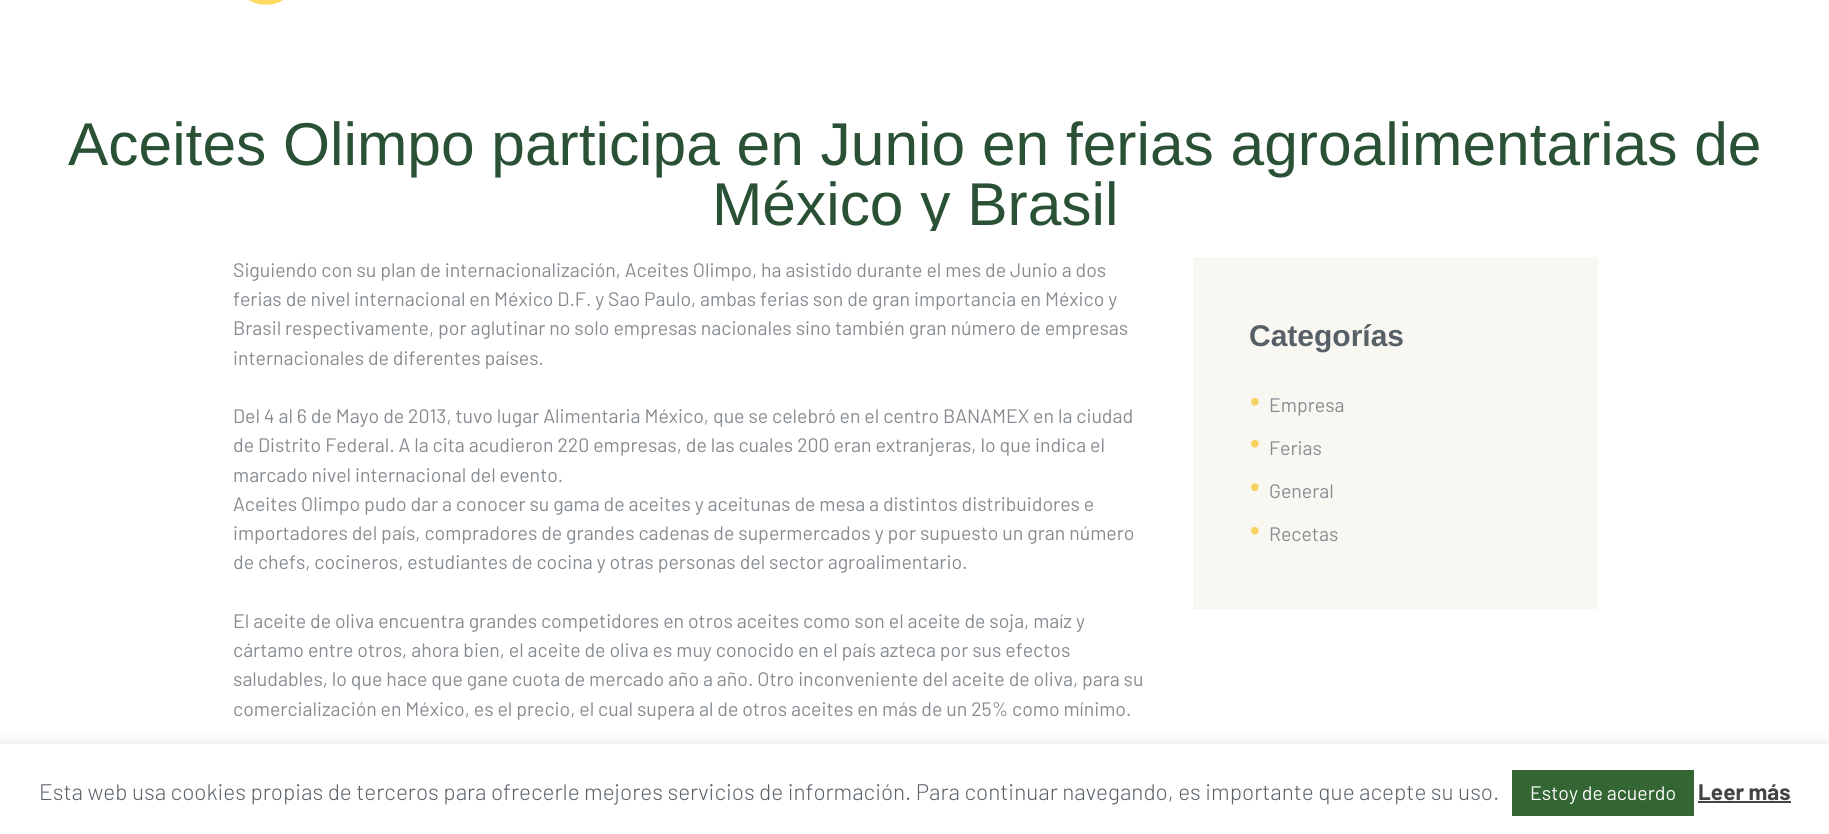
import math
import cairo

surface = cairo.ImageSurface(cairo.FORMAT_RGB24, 1829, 834)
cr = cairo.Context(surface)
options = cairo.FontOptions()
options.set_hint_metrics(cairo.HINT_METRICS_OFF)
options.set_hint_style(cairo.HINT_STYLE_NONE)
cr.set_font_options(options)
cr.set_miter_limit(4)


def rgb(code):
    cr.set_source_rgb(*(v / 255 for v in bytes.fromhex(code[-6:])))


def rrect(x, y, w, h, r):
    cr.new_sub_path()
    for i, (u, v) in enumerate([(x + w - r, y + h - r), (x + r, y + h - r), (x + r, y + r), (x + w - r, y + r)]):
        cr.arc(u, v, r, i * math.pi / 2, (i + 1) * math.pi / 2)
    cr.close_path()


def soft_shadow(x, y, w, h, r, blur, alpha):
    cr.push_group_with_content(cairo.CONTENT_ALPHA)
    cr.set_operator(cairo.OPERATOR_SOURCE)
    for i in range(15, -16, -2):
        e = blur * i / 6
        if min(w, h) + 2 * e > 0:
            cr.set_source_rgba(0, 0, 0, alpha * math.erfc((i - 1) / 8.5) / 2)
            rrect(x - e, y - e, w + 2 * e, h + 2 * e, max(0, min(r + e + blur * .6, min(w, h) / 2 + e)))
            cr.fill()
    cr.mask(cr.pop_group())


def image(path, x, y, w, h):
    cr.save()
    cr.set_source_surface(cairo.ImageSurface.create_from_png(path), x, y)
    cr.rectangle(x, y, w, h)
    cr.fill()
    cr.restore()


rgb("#ffffff")
cr.paint()
image("img/1.png", 249, 0, 34, 5)
rgb("#f9f7f2")
cr.rectangle(1193, 257, 405, 352)
cr.fill()
image("img/2.png", 1251, 397, 8, 9)
image("img/2.png", 1251, 439, 8, 9)
image("img/3.png", 1251, 483, 8, 9)
image("img/2.png", 1251, 526, 8, 9)
rgb("#acabab")
soft_shadow(0, 743, 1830, 90, 0, 7.5, 0.3)
for x, y, w, h, color in [
    (0, 744, 1829, 90, "#ffffff"),
    (1512, 770, 182, 46, "#336633"),
    (1698, 801, 93, 2, "#444444"),
]:
    rgb(color)
    cr.rectangle(x, y, w, h)
    cr.fill()
cr.select_font_face("Liberation Sans")
cr.set_font_size(60.45)
rgb("#2a5135")
cr.move_to(68, 165)
cr.show_text("Aceites Olimpo participa en Junio en ferias agroalimentarias de")
cr.save()
cr.rectangle(0, 11, 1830, 220)
cr.clip()
cr.move_to(712, 225)
cr.show_text("México y Brasil")
cr.restore()
cr.select_font_face("Barlow")
cr.set_font_size(19.5)
rgb("#858b90")
for x, y, s in [
    (233, 277, "Siguiendo con su plan de internacionalización, Aceites Olimpo, ha asistido durante el mes de Junio a dos"),
    (233, 306, "ferias de nivel internacional en México D.F. y Sao Paulo, ambas ferias son de gran importancia en México y"),
    (233, 335, "Brasil respectivamente, por aglutinar no solo empresas nacionales sino también gran número de empresas"),
    (233, 365, "internacionales de diferentes países."),
    (233, 423, "Del 4 al 6 de Mayo de 2013, tuvo lugar Alimentaria México, que se celebró en el centro BANAMEX en la ciudad"),
    (233, 452, "de Distrito Federal. A la cita acudieron 220 empresas, de las cuales 200 eran extranjeras, lo que indica el"),
    (233, 482, "marcado nivel internacional del evento."),
    (233, 511, "Aceites Olimpo pudo dar a conocer su gama de aceites y aceitunas de mesa a distintos distribuidores e"),
    (233, 540, "importadores del país, compradores de grandes cadenas de supermercados y por supuesto un gran número"),
    (233, 569, "de chefs, cocineros, estudiantes de cocina y otras personas del sector agroalimentario."),
    (233, 628, "El aceite de oliva encuentra grandes competidores en otros aceites como son el aceite de soja, maíz y"),
    (233, 657, "cártamo entre otros, ahora bien, el aceite de oliva es muy conocido en el país azteca por sus efectos"),
    (233, 686, "saludables, lo que hace que gane cuota de mercado año a año. Otro inconveniente del aceite de oliva, para su"),
    (233, 716, "comercialización en México, es el precio, el cual supera al de otros aceites en más de un 25% como mínimo."),
]:
    cr.move_to(x, y)
    cr.show_text(s)
cr.select_font_face("Liberation Sans", cairo.FONT_SLANT_NORMAL, cairo.FONT_WEIGHT_BOLD)
cr.set_font_size(30)
rgb("#586067")
cr.move_to(1249, 346)
cr.show_text("Categorías")
cr.select_font_face("Barlow")
cr.set_font_size(19.5)
rgb("#858b90")
for x, y, s in [
    (1269, 412, "Empresa"),
    (1269, 455, "Ferias"),
    (1269, 498, "General"),
    (1269, 541, "Recetas"),
]:
    cr.move_to(x, y)
    cr.show_text(s)
cr.select_font_face("Barlow Light")
cr.set_font_size(22.5)
rgb("#586067")
cr.move_to(39, 800)
cr.show_text("Esta web usa cookies propias de terceros para ofrecerle mejores servicios de información. Para continuar navegando, es importante que acepte su uso.")
cr.select_font_face("Barlow")
cr.set_font_size(19.5)
rgb("#ffffff")
cr.move_to(1530, 800)
cr.show_text("Estoy de acuerdo")
cr.select_font_face("Barlow", cairo.FONT_SLANT_NORMAL, cairo.FONT_WEIGHT_BOLD)
cr.set_font_size(22.5)
rgb("#444444")
cr.move_to(1698, 800)
cr.show_text("Leer más")
surface.write_to_png("page.png")
